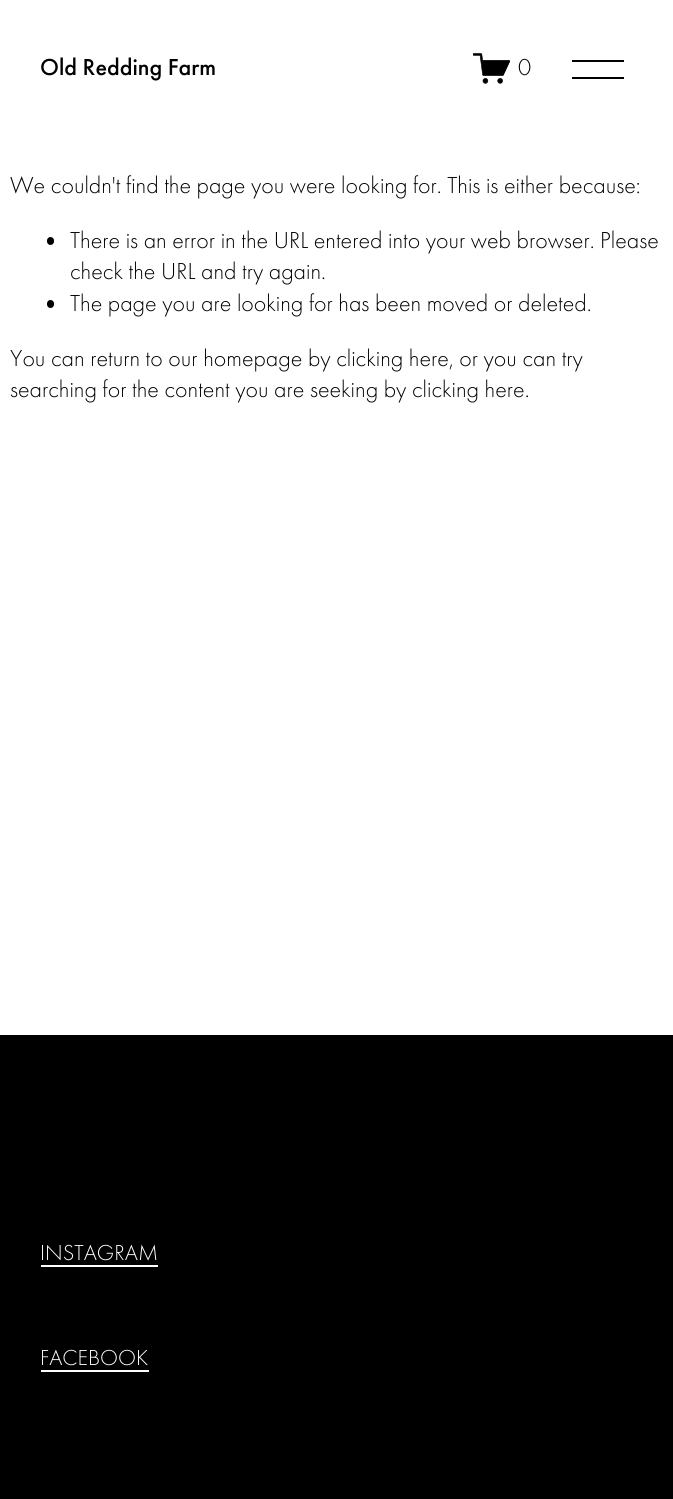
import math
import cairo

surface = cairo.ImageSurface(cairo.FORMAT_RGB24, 673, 1499)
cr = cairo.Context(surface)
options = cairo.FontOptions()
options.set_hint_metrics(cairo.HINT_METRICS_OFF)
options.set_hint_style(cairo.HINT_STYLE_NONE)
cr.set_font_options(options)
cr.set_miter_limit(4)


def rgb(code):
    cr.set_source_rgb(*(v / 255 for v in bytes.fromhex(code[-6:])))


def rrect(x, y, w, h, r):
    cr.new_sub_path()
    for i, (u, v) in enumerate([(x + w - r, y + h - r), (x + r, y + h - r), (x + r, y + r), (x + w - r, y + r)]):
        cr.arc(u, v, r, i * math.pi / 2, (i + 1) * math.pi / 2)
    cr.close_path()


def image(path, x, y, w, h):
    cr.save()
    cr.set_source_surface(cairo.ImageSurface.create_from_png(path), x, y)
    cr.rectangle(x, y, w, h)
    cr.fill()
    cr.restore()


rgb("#ffffff")
cr.paint()
image("img/1.png", 473, 53, 37, 31)
rgb("#000000")
cr.rectangle(572, 60, 52, 2)
cr.fill()
cr.rectangle(572, 77, 52, 2)
cr.fill()
rrect(47, 237, 7, 8, 3.5)
cr.fill()
rrect(47, 300, 7, 8, 3.5)
cr.fill()
for x, y, w, h, color in [
    (0, 1035, 673, 464, "#000000"),
    (41, 1265, 117, 2, "#ffffff"),
    (41, 1370, 108, 2, "#ffffff"),
]:
    rgb(color)
    cr.rectangle(x, y, w, h)
    cr.fill()
cr.select_font_face("Futura PT Medium")
cr.set_font_size(24)
rgb("#000000")
cr.move_to(40, 75)
cr.show_text("Old Redding Farm")
cr.select_font_face("Futura PT Light")
for x, y, s in [
    (518, 75, "0"),
    (10, 193, "We couldn't find the page you were looking for. This is either because:"),
    (70, 248, "There is an error in the URL entered into your web browser. Please"),
    (70, 279, "check the URL and try again."),
    (70, 311, "The page you are looking for has been moved or deleted."),
    (10, 366, "You can return to our homepage by clicking here, or you can try"),
    (10, 397, "searching for the content you are seeking by clicking here."),
]:
    cr.move_to(x, y)
    cr.show_text(s)
cr.set_font_size(22.5)
rgb("#ffffff")
cr.move_to(40, 1260)
cr.show_text("INSTAGRAM")
cr.move_to(40, 1365)
cr.show_text("FACEBOOK")
surface.write_to_png("page.png")
